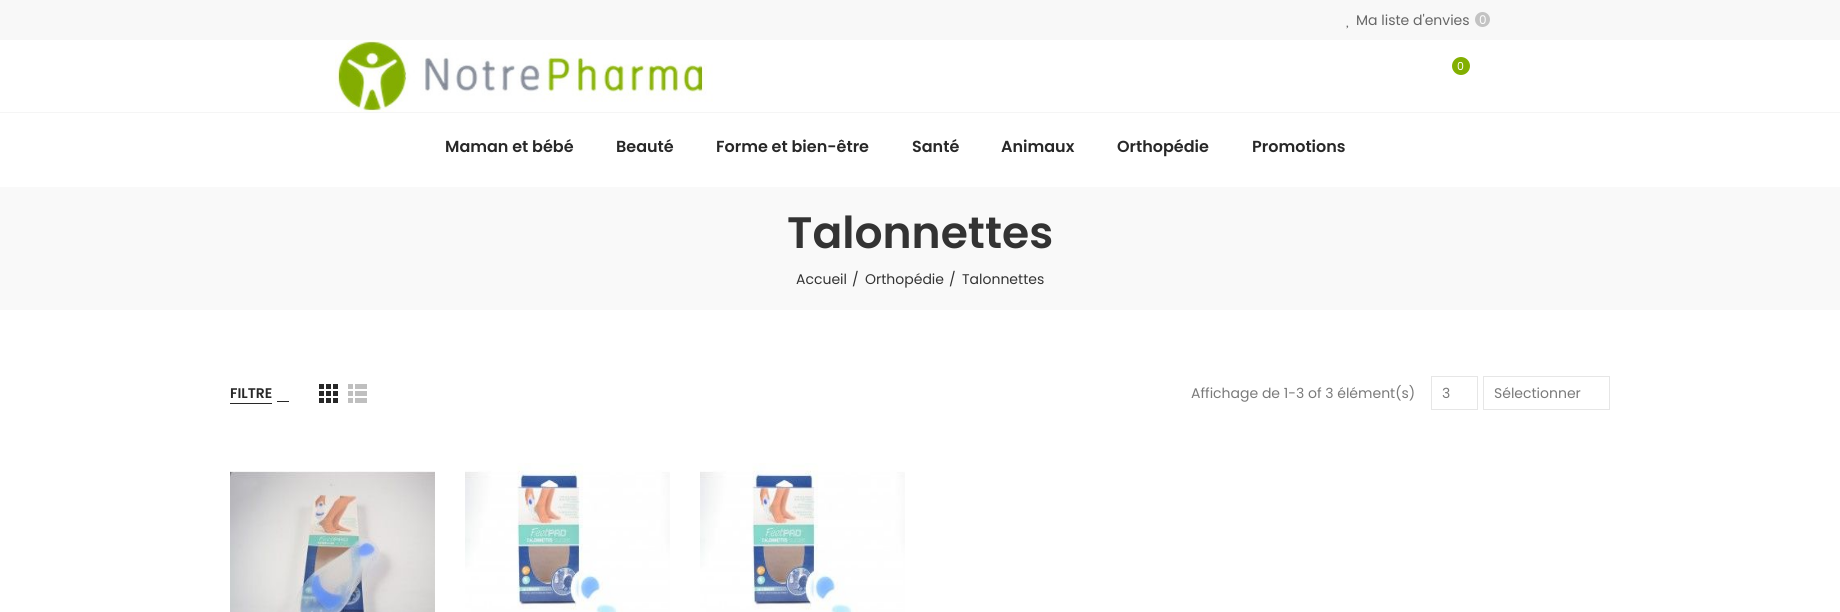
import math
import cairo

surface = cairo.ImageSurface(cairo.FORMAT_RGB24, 1840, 612)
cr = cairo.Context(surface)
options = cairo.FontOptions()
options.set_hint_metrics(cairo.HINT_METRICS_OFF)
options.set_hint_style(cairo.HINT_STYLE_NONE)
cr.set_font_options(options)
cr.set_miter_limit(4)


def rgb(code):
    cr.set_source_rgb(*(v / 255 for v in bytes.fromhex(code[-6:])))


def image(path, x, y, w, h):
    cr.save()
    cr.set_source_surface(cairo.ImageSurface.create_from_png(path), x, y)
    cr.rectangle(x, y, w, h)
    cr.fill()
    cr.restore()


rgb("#ffffff")
cr.paint()
rgb("#f8f8f8")
cr.rectangle(0, 0, 1840, 40)
cr.fill()
rgb("#c3c3c3")
cr.arc(1482.5, 19.5, 7.5, 0, 2 * math.pi)
cr.fill()
image("img/1.png", 1346, 25, 3, 4)
rgb("#f5f5f5")
cr.rectangle(0, 112, 1840, 1)
cr.fill()
image("img/2.png", 335, 40, 378, 72)
rgb("#82af00")
cr.arc(1461, 66, 9, 0, 2 * math.pi)
cr.fill()
for x, y, w, h, color in [
    (0, 187, 1840, 123, "#f9f9f9"),
    (230, 403, 42, 1, "#282828"),
    (277, 401, 12, 1, "#282828"),
]:
    rgb(color)
    cr.rectangle(x, y, w, h)
    cr.fill()
image("img/3.png", 319, 384, 19, 19)
image("img/4.png", 348, 384, 19, 19)
cr.rectangle(1431.5, 376.5, 46, 33)
rgb("#e6e6e6")
cr.set_line_width(1)
cr.stroke()
cr.rectangle(1483.5, 376.5, 126, 33)
cr.stroke()
image("img/5.png", 230, 471, 205, 141)
image("img/6.png", 465, 463, 205, 149)
image("img/6.png", 700, 463, 205, 149)
cr.select_font_face("Poppins")
cr.set_font_size(14)
rgb("#666666")
cr.move_to(1356, 25)
cr.show_text("Ma liste d'envies")
cr.set_font_size(12)
rgb("#ffffff")
cr.move_to(1479, 24)
cr.show_text("0")
cr.set_font_size(11)
cr.move_to(1457, 70)
cr.show_text("0")
cr.select_font_face("Poppins SemiBold")
cr.set_font_size(16)
rgb("#282828")
for x, y, s in [
    (445, 152, "Maman et bébé"),
    (616, 152, "Beauté"),
    (716, 152, "Forme et bien-être"),
    (912, 152, "Santé"),
    (1001, 152, "Animaux"),
    (1117, 152, "Orthopédie"),
    (1252, 152, "Promotions"),
]:
    cr.move_to(x, y)
    cr.show_text(s)
cr.set_font_size(44)
rgb("#333333")
cr.move_to(787, 248)
cr.show_text("Talonnettes")
cr.select_font_face("Poppins")
cr.set_font_size(14)
for x, y, s in [
    (796, 284, "Accueil"),
    (852, 284, "/"),
    (865, 284, "Orthopédie"),
    (949, 284, "/"),
    (962, 284, "Talonnettes"),
]:
    cr.move_to(x, y)
    cr.show_text(s)
cr.select_font_face("Poppins SemiBold")
rgb("#282828")
cr.move_to(230, 398)
cr.show_text("FILTRE")
cr.select_font_face("Poppins")
rgb("#7a7a7a")
for x, y, s in [
    (1191, 398, "Affichage de 1-3 of 3 élément(s)"),
    (1442, 398, "3"),
    (1494, 398, "Sélectionner"),
]:
    cr.move_to(x, y)
    cr.show_text(s)
surface.write_to_png("page.png")
